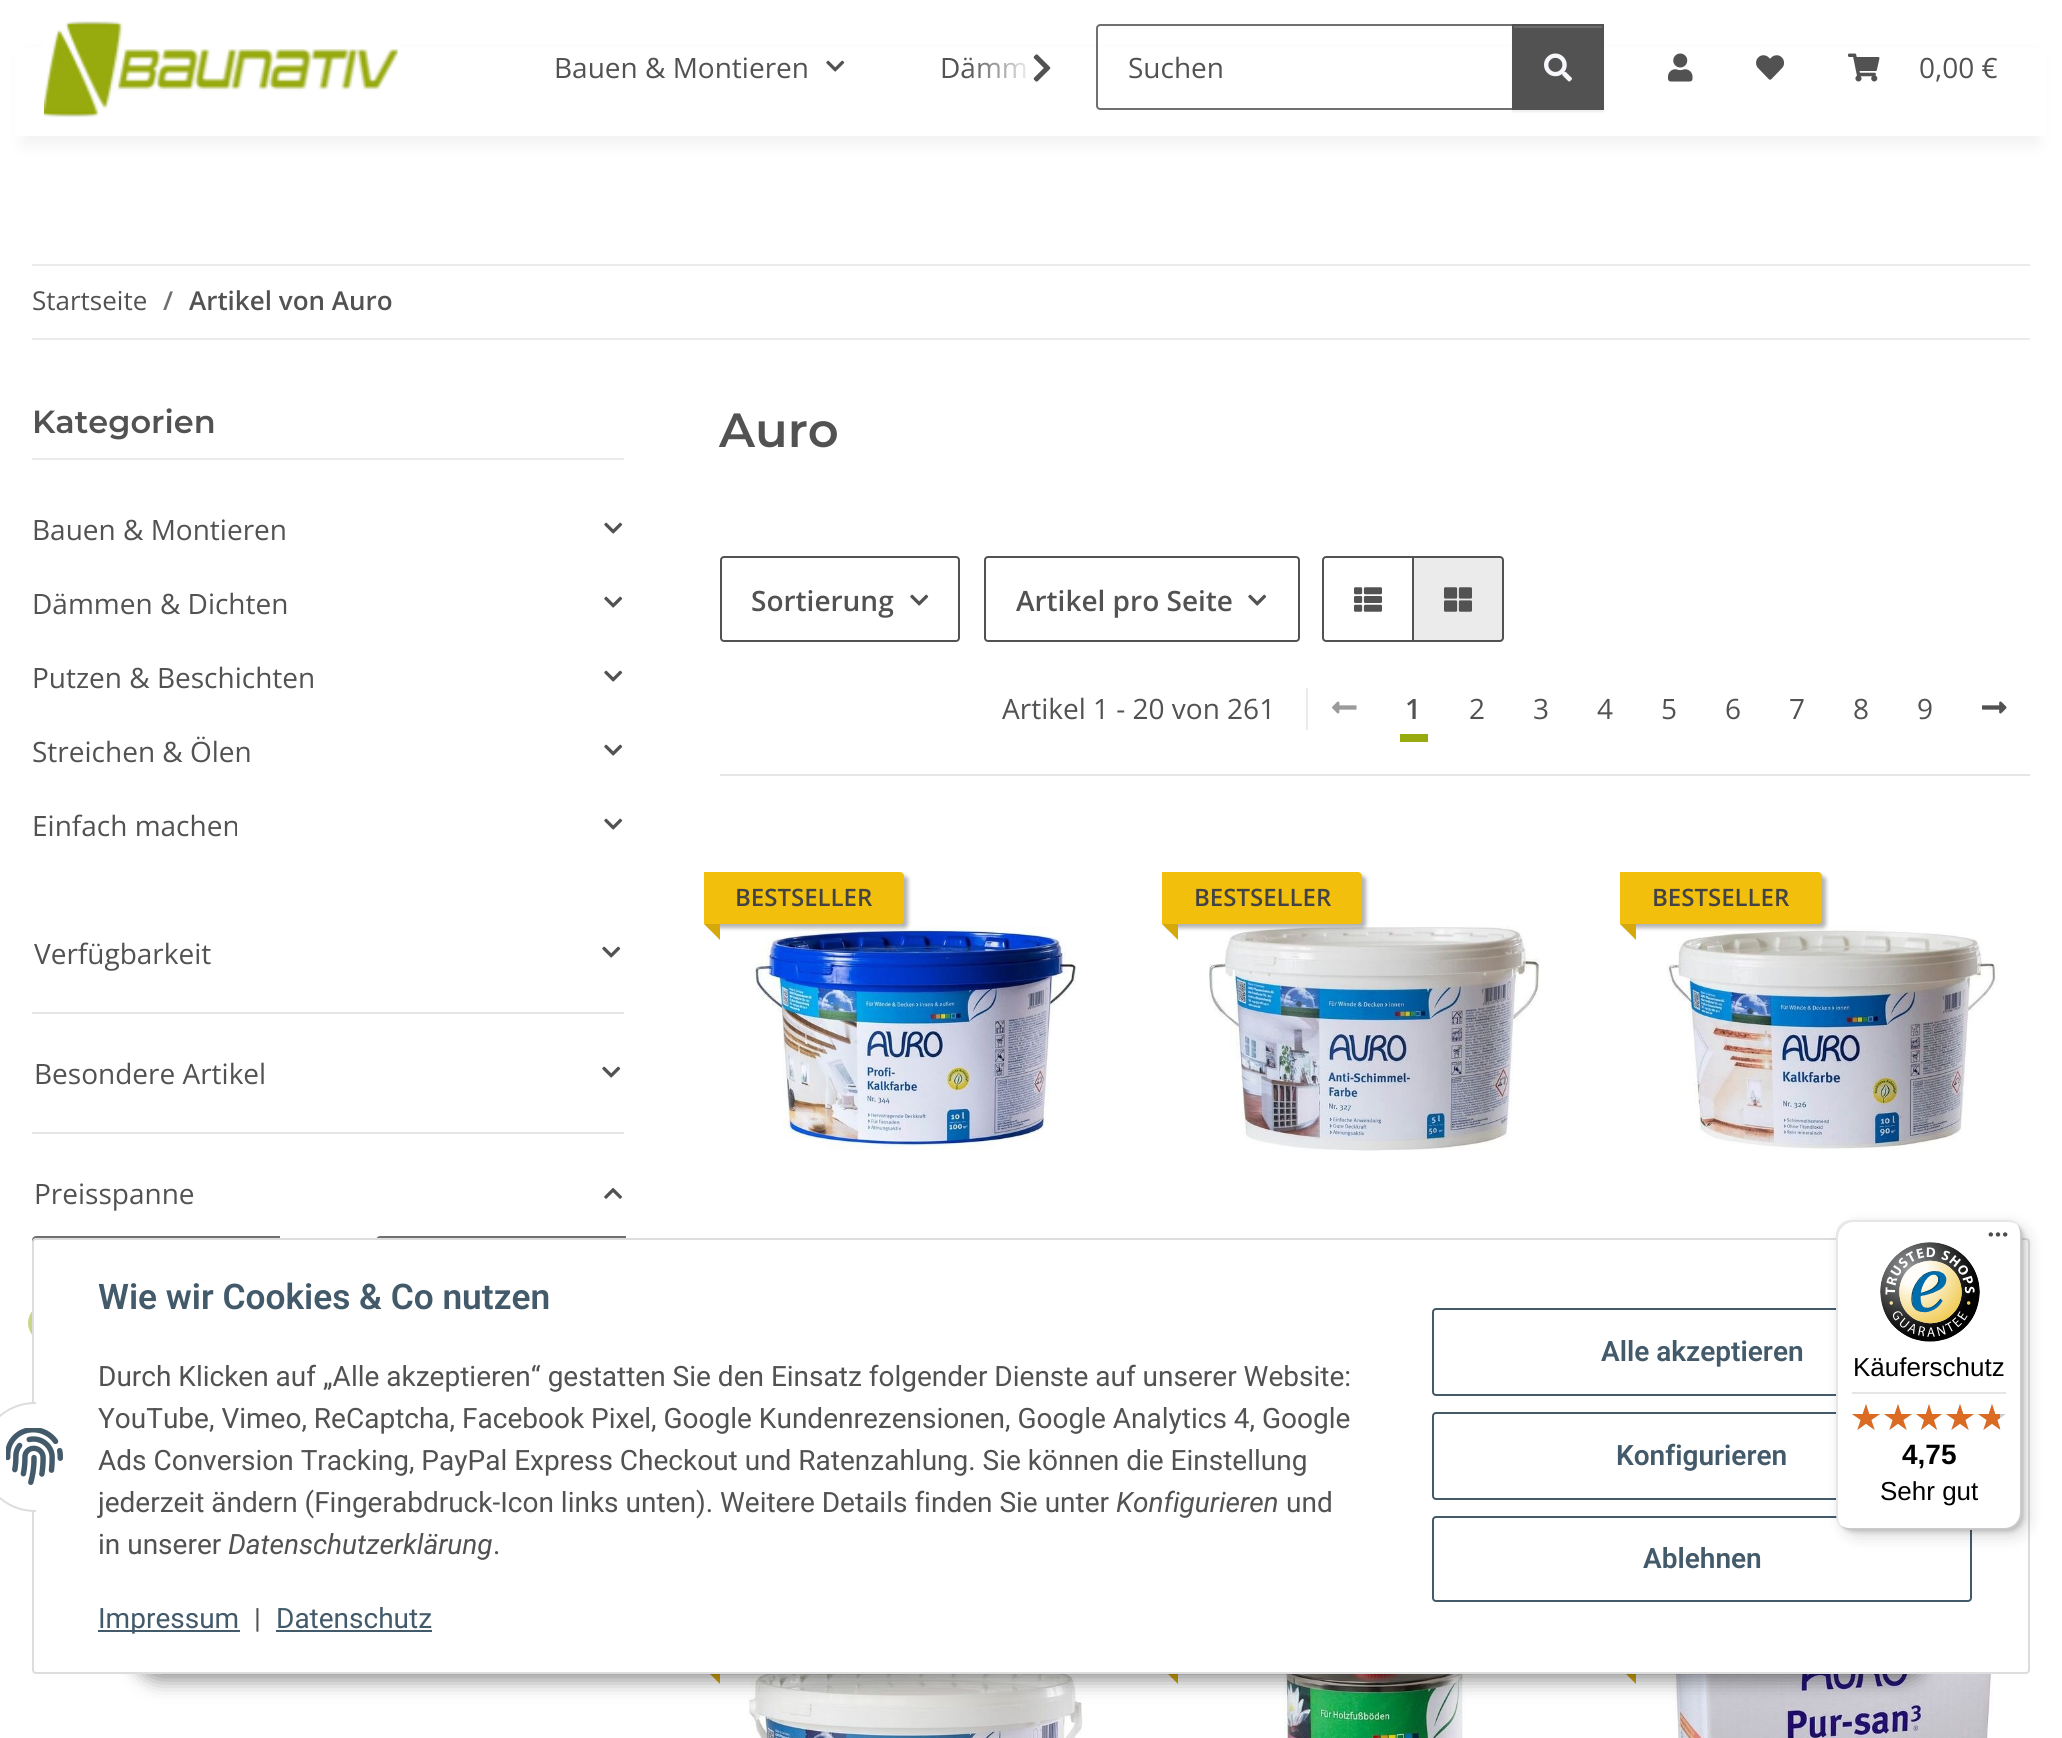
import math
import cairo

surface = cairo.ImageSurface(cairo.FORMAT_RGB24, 2062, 1738)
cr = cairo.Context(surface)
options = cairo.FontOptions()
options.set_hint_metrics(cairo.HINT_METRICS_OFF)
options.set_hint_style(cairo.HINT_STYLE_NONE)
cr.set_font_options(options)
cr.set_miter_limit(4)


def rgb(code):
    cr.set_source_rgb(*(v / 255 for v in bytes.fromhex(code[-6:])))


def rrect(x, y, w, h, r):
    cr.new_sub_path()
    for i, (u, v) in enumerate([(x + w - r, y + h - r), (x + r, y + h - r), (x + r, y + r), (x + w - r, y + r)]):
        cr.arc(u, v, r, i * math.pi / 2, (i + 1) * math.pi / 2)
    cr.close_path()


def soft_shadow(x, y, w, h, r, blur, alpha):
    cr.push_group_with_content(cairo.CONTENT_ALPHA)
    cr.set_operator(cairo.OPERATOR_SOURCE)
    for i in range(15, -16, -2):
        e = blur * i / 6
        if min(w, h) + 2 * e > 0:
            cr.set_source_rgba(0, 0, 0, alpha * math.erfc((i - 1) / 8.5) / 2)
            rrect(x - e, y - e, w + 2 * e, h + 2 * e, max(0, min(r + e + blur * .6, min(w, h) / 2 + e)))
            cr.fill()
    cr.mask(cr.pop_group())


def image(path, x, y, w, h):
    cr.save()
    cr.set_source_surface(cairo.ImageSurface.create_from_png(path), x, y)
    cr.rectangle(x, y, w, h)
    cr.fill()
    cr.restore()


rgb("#ffffff")
cr.paint()
rgb("#000000")
soft_shadow(24, 56, 2014, 88, 0, 9, 0.06)
rgb("#ffffff")
cr.rectangle(15, 47, 2032, 89)
cr.fill()
image("img/1.png", 44, 21, 354, 97)
image("img/2.png", 1033, 54, 18, 28)
image("img/3.png", 826, 60, 19, 12)
cr.new_path()
cr.move_to(1100, 25)
cr.line_to(1513, 25)
cr.line_to(1513, 109)
cr.line_to(1100, 109)
cr.curve_to(1098.5, 109, 1097, 107.5, 1097, 106)
cr.line_to(1097, 28)
cr.curve_to(1097, 26.5, 1098.5, 25, 1100, 25)
cr.close_path()
rgb("#707070")
cr.stroke()
rgb("#000000")
soft_shadow(1512, 26, 92, 86, 0, 1, 0.07)
rgb("#525252")
cr.rectangle(1512, 24, 92, 86)
cr.fill()
rgb("#6c6c6c")
cr.rectangle(1514, 26, 88, 2)
cr.fill()
image("img/4.png", 1544, 53, 28, 29)
image("img/5.png", 1668, 53, 25, 29)
image("img/6.png", 1756, 55, 29, 25)
image("img/7.png", 1848, 53, 32, 29)
for x, y, w, h, color in [
    (32, 264, 1998, 2, "#ebebeb"),
    (32, 338, 1998, 2, "#ebebeb"),
    (32, 458, 592, 2, "#ebebeb"),
]:
    rgb(color)
    cr.rectangle(x, y, w, h)
    cr.fill()
image("img/3.png", 604, 522, 19, 12)
image("img/3.png", 604, 596, 19, 12)
image("img/3.png", 604, 670, 19, 12)
image("img/3.png", 604, 744, 19, 12)
image("img/3.png", 604, 818, 19, 12)
image("img/3.png", 602, 946, 19, 12)
rgb("#e6e6e6")
cr.rectangle(32, 1012, 592, 2)
cr.fill()
image("img/3.png", 602, 1066, 19, 12)
cr.rectangle(32, 1132, 592, 2)
cr.fill()
image("img/8.png", 604, 1188, 18, 11)
cr.new_path()
cr.move_to(36, 1237)
cr.line_to(191, 1237)
cr.line_to(191, 1285)
cr.line_to(36, 1285)
cr.curve_to(34.5, 1285, 33, 1283.5, 33, 1282)
cr.line_to(33, 1240)
cr.curve_to(33, 1238.5, 34.5, 1237, 36, 1237)
cr.close_path()
rgb("#707070")
cr.stroke()
cr.rectangle(192, 1236, 88, 2)
cr.fill()
cr.new_path()
cr.move_to(380, 1237)
cr.line_to(537, 1237)
cr.line_to(537, 1285)
cr.line_to(380, 1285)
cr.curve_to(378.5, 1285, 377, 1283.5, 377, 1282)
cr.line_to(377, 1240)
cr.curve_to(377, 1238.5, 378.5, 1237, 380, 1237)
cr.close_path()
cr.stroke()
cr.rectangle(538, 1236, 88, 2)
cr.fill()
rrect(33, 1309, 30, 28, 14)
cr.set_source_rgba(0.592, 0.667, 0.055, 0.5)
cr.set_line_width(10)
cr.stroke()
rrect(721, 557, 238, 84, 3)
rgb("#525252")
cr.set_line_width(2)
cr.stroke()
image("img/3.png", 910, 594, 19, 12)
rrect(985, 557, 314, 84, 3)
cr.stroke()
image("img/3.png", 1248, 594, 19, 12)
cr.new_path()
cr.move_to(1326, 557)
cr.line_to(1413, 557)
cr.line_to(1413, 641)
cr.line_to(1326, 641)
cr.curve_to(1324.5, 641, 1323, 639.5, 1323, 638)
cr.line_to(1323, 560)
cr.curve_to(1323, 558.5, 1324.5, 557, 1326, 557)
cr.close_path()
cr.stroke()
image("img/9.png", 1354, 587, 28, 25)
rgb("#ebebeb")
cr.new_path()
cr.move_to(1413, 557)
cr.line_to(1500, 557)
cr.curve_to(1501.5, 557, 1503, 558.5, 1503, 560)
cr.line_to(1503, 638)
cr.curve_to(1503, 639.5, 1501.5, 641, 1500, 641)
cr.line_to(1413, 641)
cr.close_path()
cr.fill_preserve()
rgb("#525252")
cr.stroke()
image("img/10.png", 1444, 587, 28, 25)
rgb("#ebebeb")
cr.rectangle(1306, 688, 2, 42)
cr.fill()
image("img/11.png", 1332, 701, 25, 13)
rgb("#97aa0e")
cr.rectangle(1400, 734, 28, 8)
cr.fill()
image("img/12.png", 1982, 701, 25, 13)
rgb("#e6e6e6")
cr.rectangle(720, 774, 1310, 2)
cr.fill()
image("img/13.png", 751, 926, 326, 224)
rgb("#000000")
soft_shadow(708, 876, 200, 52, 4, 2, 0.3)
rgb("#f2bf0d")
cr.new_path()
cr.move_to(704, 872)
cr.line_to(900, 872)
cr.curve_to(902, 872, 904, 874, 904, 876)
cr.line_to(904, 920)
cr.curve_to(904, 922, 902, 924, 900, 924)
cr.line_to(704, 924)
cr.close_path()
cr.fill()
rgb("#d5a80b")
cr.new_path()
cr.move_to(720, 924)
cr.line_to(720, 940)
cr.line_to(704, 924)
cr.close_path()
cr.fill()
image("img/14.png", 1209, 926, 331, 225)
rgb("#000000")
soft_shadow(1166, 876, 200, 52, 4, 2, 0.3)
rgb("#f2bf0d")
cr.new_path()
cr.move_to(1162, 872)
cr.line_to(1358, 872)
cr.curve_to(1360, 872, 1362, 874, 1362, 876)
cr.line_to(1362, 920)
cr.curve_to(1362, 922, 1360, 924, 1358, 924)
cr.line_to(1162, 924)
cr.close_path()
cr.fill()
rgb("#d5a80b")
cr.new_path()
cr.move_to(1178, 924)
cr.line_to(1178, 940)
cr.line_to(1162, 924)
cr.close_path()
cr.fill()
image("img/15.png", 1667, 926, 332, 224)
rgb("#000000")
soft_shadow(1624, 876, 202, 52, 4, 2, 0.3)
rgb("#f2bf0d")
cr.new_path()
cr.move_to(1620, 872)
cr.line_to(1818, 872)
cr.curve_to(1820, 872, 1822, 874, 1822, 876)
cr.line_to(1822, 920)
cr.curve_to(1822, 922, 1820, 924, 1818, 924)
cr.line_to(1620, 924)
cr.close_path()
cr.fill()
rgb("#d5a80b")
cr.new_path()
cr.move_to(1636, 924)
cr.line_to(1636, 940)
cr.line_to(1620, 924)
cr.close_path()
cr.fill()
image("img/16.png", 747, 1674, 336, 64)
rgb("#000000")
soft_shadow(708, 1620, 200, 52, 4, 2, 0.3)
rgb("#d5a80b")
cr.new_path()
cr.move_to(720, 1668)
cr.line_to(720, 1684)
cr.line_to(704, 1668)
cr.close_path()
cr.fill()
image("img/17.png", 1283, 1674, 182, 64)
rgb("#000000")
soft_shadow(1166, 1620, 200, 52, 4, 2, 0.3)
rgb("#d5a80b")
cr.new_path()
cr.move_to(1178, 1668)
cr.line_to(1178, 1684)
cr.line_to(1162, 1668)
cr.close_path()
cr.fill()
image("img/18.png", 1667, 1674, 326, 64)
rgb("#000000")
soft_shadow(1624, 1620, 202, 52, 4, 2, 0.3)
rgb("#d5a80b")
cr.new_path()
cr.move_to(1636, 1668)
cr.line_to(1636, 1684)
cr.line_to(1620, 1668)
cr.close_path()
cr.fill()
rgb("#000000")
soft_shadow(134, 1616, 1794, 64, 32, 10, 0.45)
rgb("#ffffff")
rrect(33, 1239, 1996, 434, 3)
cr.fill_preserve()
rgb("#dddddd")
cr.stroke()
rgb("#ffffff")
cr.arc(35, 1457, 54, 0, 2 * math.pi)
cr.fill_preserve()
rgb("#dddddd")
cr.stroke()
rgb("#ffffff")
cr.rectangle(36, 1402, 54, 110)
cr.fill()
image("img/19.png", 6, 1428, 57, 57)
rgb("#435a6b")
cr.rectangle(98, 1630, 142, 2)
cr.fill()
cr.rectangle(276, 1630, 156, 2)
cr.fill()
rrect(1433, 1309, 538, 86, 3)
cr.stroke()
rrect(1433, 1413, 538, 86, 3)
cr.stroke()
rrect(1433, 1517, 538, 84, 3)
cr.stroke()
rgb("#000000")
soft_shadow(1842, 1226, 186, 310, 16, 8, 0.15)
soft_shadow(1838, 1222, 186, 310, 16, 2, 0.15)
rgb("#ffffff")
rrect(1836, 1220, 186, 310, 16)
cr.fill()
cr.set_source_rgba(0, 0, 0, 0.1)
cr.new_path()
cr.move_to(1854, 1222)
cr.line_to(2008, 1222)
cr.curve_to(2012, 1222, 2015, 1223, 2018, 1225)
cr.curve_to(2015, 1222, 2011, 1220, 2006, 1220)
cr.line_to(1852, 1220)
cr.curve_to(1843, 1220, 1836, 1227, 1836, 1236)
cr.line_to(1836, 1514)
cr.curve_to(1836, 1519, 1838, 1523, 1841, 1526)
cr.curve_to(1839, 1523, 1838, 1520, 1838, 1516)
cr.line_to(1838, 1238)
cr.curve_to(1838, 1229, 1845, 1222, 1854, 1222)
cr.close_path()
cr.fill()
cr.set_source_rgba(0, 0, 0, 0.2)
cr.new_path()
cr.move_to(1840, 1525)
cr.curve_to(1843, 1528, 1847, 1530, 1852, 1530)
cr.line_to(2006, 1530)
cr.curve_to(2015, 1530, 2022, 1523, 2022, 1514)
cr.line_to(2022, 1236)
cr.curve_to(2022, 1231, 2020, 1227, 2017, 1224)
cr.curve_to(2019, 1227, 2020, 1230, 2020, 1234)
cr.line_to(2020, 1512)
cr.curve_to(2020, 1521, 2013, 1528, 2004, 1528)
cr.line_to(1850, 1528)
cr.curve_to(1846, 1528, 1843, 1527, 1840, 1525)
cr.close_path()
cr.fill()
cr.set_source_rgba(0.196, 0.196, 0.196, 0.2)
cr.new_path()
cr.move_to(1841, 1525)
cr.curve_to(1844, 1528, 1848, 1530, 1852, 1530)
cr.line_to(2006, 1530)
cr.curve_to(2015, 1530, 2022, 1523, 2022, 1514)
cr.line_to(2022, 1236)
cr.curve_to(2022, 1232, 2020, 1228, 2017, 1225)
cr.curve_to(2020, 1228, 2021, 1231, 2021, 1235)
cr.line_to(2021, 1513)
cr.curve_to(2021, 1522, 2014, 1529, 2005, 1529)
cr.line_to(1851, 1529)
cr.curve_to(1847, 1529, 1844, 1528, 1841, 1525)
cr.close_path()
cr.fill()
cr.set_source_rgba(1, 1, 1, 0.3)
cr.new_path()
cr.move_to(1841, 1525)
cr.curve_to(1844, 1528, 1848, 1530, 1852, 1530)
cr.line_to(2006, 1530)
cr.curve_to(2015, 1530, 2022, 1523, 2022, 1514)
cr.line_to(2022, 1236)
cr.curve_to(2022, 1232, 2020, 1228, 2017, 1225)
cr.curve_to(2020, 1228, 2021, 1231, 2021, 1235)
cr.line_to(2021, 1513)
cr.curve_to(2021, 1522, 2014, 1529, 2005, 1529)
cr.line_to(1851, 1529)
cr.curve_to(1847, 1529, 1844, 1528, 1841, 1525)
cr.close_path()
cr.fill()
image("img/20.png", 1988, 1232, 20, 5)
image("img/21.png", 1880, 1242, 100, 100)
rgb("#e5e5e5")
cr.rectangle(1852, 1392, 154, 2)
cr.fill()
image("img/22.png", 1852, 1404, 28, 26)
image("img/22.png", 1884, 1404, 28, 26)
image("img/23.png", 1916, 1404, 26, 26)
image("img/22.png", 1946, 1404, 28, 26)
image("img/22.png", 1978, 1404, 28, 26)
image("img/24.png", 1852, 1404, 28, 26)
image("img/24.png", 1884, 1404, 28, 26)
image("img/25.png", 1916, 1404, 26, 26)
image("img/24.png", 1946, 1404, 28, 26)
image("img/26.png", 1978, 1404, 22, 26)
cr.select_font_face("Open Sans")
cr.set_font_size(28)
rgb("#525252")
cr.move_to(554, 78)
cr.show_text("Bauen & Montieren")
cr.move_to(940, 78)
cr.show_text("Dämm")
gradient = cairo.LinearGradient(968, 68, 1064, 68)
gradient.add_color_stop_rgba(0, 1, 1, 1, 0.01)
gradient.add_color_stop_rgba(0.7, 1, 1, 1, 1)
cr.set_source(gradient)
cr.rectangle(969, 57, 57, 21)
cr.fill()
rgb("#525252")
cr.move_to(1128, 78)
cr.show_text("Suchen")
cr.move_to(1919, 78)
cr.show_text("0,00 €")
cr.set_font_size(26)
cr.move_to(32, 310)
cr.show_text("Startseite")
cr.select_font_face("Open Sans SemiBold")
rgb("#707070")
cr.move_to(163, 310)
cr.show_text("/")
rgb("#525252")
cr.move_to(189, 310)
cr.show_text("Artikel von Auro")
cr.select_font_face("Montserrat SemiBold")
cr.set_font_size(32)
cr.move_to(32, 433)
cr.show_text("Kategorien")
cr.select_font_face("Open Sans")
cr.set_font_size(28)
for x, y, s in [
    (32, 540, "Bauen & Montieren"),
    (32, 614, "Dämmen & Dichten"),
    (32, 688, "Putzen & Beschichten"),
    (32, 762, "Streichen & Ölen"),
    (32, 836, "Einfach machen"),
    (34, 964, "Verfügbarkeit"),
    (34, 1084, "Besondere Artikel"),
    (34, 1204, "Preisspanne"),
]:
    cr.move_to(x, y)
    cr.show_text(s)
cr.select_font_face("Montserrat SemiBold")
cr.set_font_size(48)
cr.move_to(719, 447)
cr.show_text("Auro")
cr.select_font_face("Open Sans SemiBold")
cr.set_font_size(28)
cr.move_to(751, 611)
cr.show_text("Sortierung")
cr.move_to(1016, 611)
cr.show_text("Artikel pro Seite")
cr.select_font_face("Open Sans")
cr.move_to(1002, 719)
cr.show_text("Artikel 1 - 20 von 261")
cr.select_font_face("Open Sans SemiBold")
cr.move_to(1405, 719)
cr.show_text("1")
cr.select_font_face("Open Sans")
for x, y, s in [
    (1469, 719, "2"),
    (1533, 719, "3"),
    (1597, 719, "4"),
    (1661, 719, "5"),
    (1725, 719, "6"),
    (1789, 719, "7"),
    (1853, 719, "8"),
    (1917, 719, "9"),
]:
    cr.move_to(x, y)
    cr.show_text(s)
cr.select_font_face("Open Sans SemiBold")
cr.set_font_size(24)
rgb("#434343")
for x, y, s in [
    (735, 906, "BESTSELLER"),
    (1194, 906, "BESTSELLER"),
    (1652, 906, "BESTSELLER"),
]:
    cr.move_to(x, y)
    cr.show_text(s)
cr.select_font_face("Roboto SemiBold")
cr.set_font_size(35.25)
rgb("#435a6b")
cr.move_to(98, 1309)
cr.show_text("Wie wir Cookies & Co nutzen")
cr.select_font_face("Roboto")
cr.set_font_size(28)
rgb("#525252")
for x, y, s in [
    (98, 1386, "Durch Klicken auf „Alle akzeptieren“ gestatten Sie den Einsatz folgender Dienste auf unserer Website:"),
    (98, 1428, "YouTube, Vimeo, ReCaptcha, Facebook Pixel, Google Kundenrezensionen, Google Analytics 4, Google"),
    (98, 1470, "Ads Conversion Tracking, PayPal Express Checkout und Ratenzahlung. Sie können die Einstellung"),
    (98, 1512, "jederzeit ändern (Fingerabdruck-Icon links unten). Weitere Details finden Sie unter"),
]:
    cr.move_to(x, y)
    cr.show_text(s)
cr.select_font_face("Roboto", cairo.FONT_SLANT_ITALIC)
cr.move_to(1116, 1512)
cr.show_text("Konfigurieren")
cr.select_font_face("Roboto")
cr.move_to(1286, 1512)
cr.show_text("und")
cr.move_to(98, 1554)
cr.show_text("in unserer")
cr.select_font_face("Roboto", cairo.FONT_SLANT_ITALIC)
cr.move_to(228, 1554)
cr.show_text("Datenschutzerklärung")
cr.select_font_face("Roboto")
cr.move_to(493, 1554)
cr.show_text(".")
rgb("#435a6b")
cr.move_to(98, 1628)
cr.show_text("Impressum")
rgb("#525252")
cr.move_to(254, 1628)
cr.show_text("|")
rgb("#435a6b")
cr.move_to(276, 1628)
cr.show_text("Datenschutz")
cr.select_font_face("Roboto SemiBold")
for x, y, s in [
    (1601, 1361, "Alle akzeptieren"),
    (1616, 1465, "Konfigurieren"),
    (1643, 1568, "Ablehnen"),
]:
    cr.move_to(x, y)
    cr.show_text(s)
cr.select_font_face("Liberation Sans")
cr.set_font_size(26)
rgb("#000000")
cr.move_to(1853, 1376)
cr.show_text("Käuferschutz")
cr.select_font_face("Liberation Sans", cairo.FONT_SLANT_NORMAL, cairo.FONT_WEIGHT_BOLD)
cr.set_font_size(28)
cr.move_to(1902, 1464)
cr.show_text("4,75")
cr.select_font_face("Liberation Sans")
cr.set_font_size(26)
cr.move_to(1880, 1500)
cr.show_text("Sehr gut")
surface.write_to_png("page.png")
